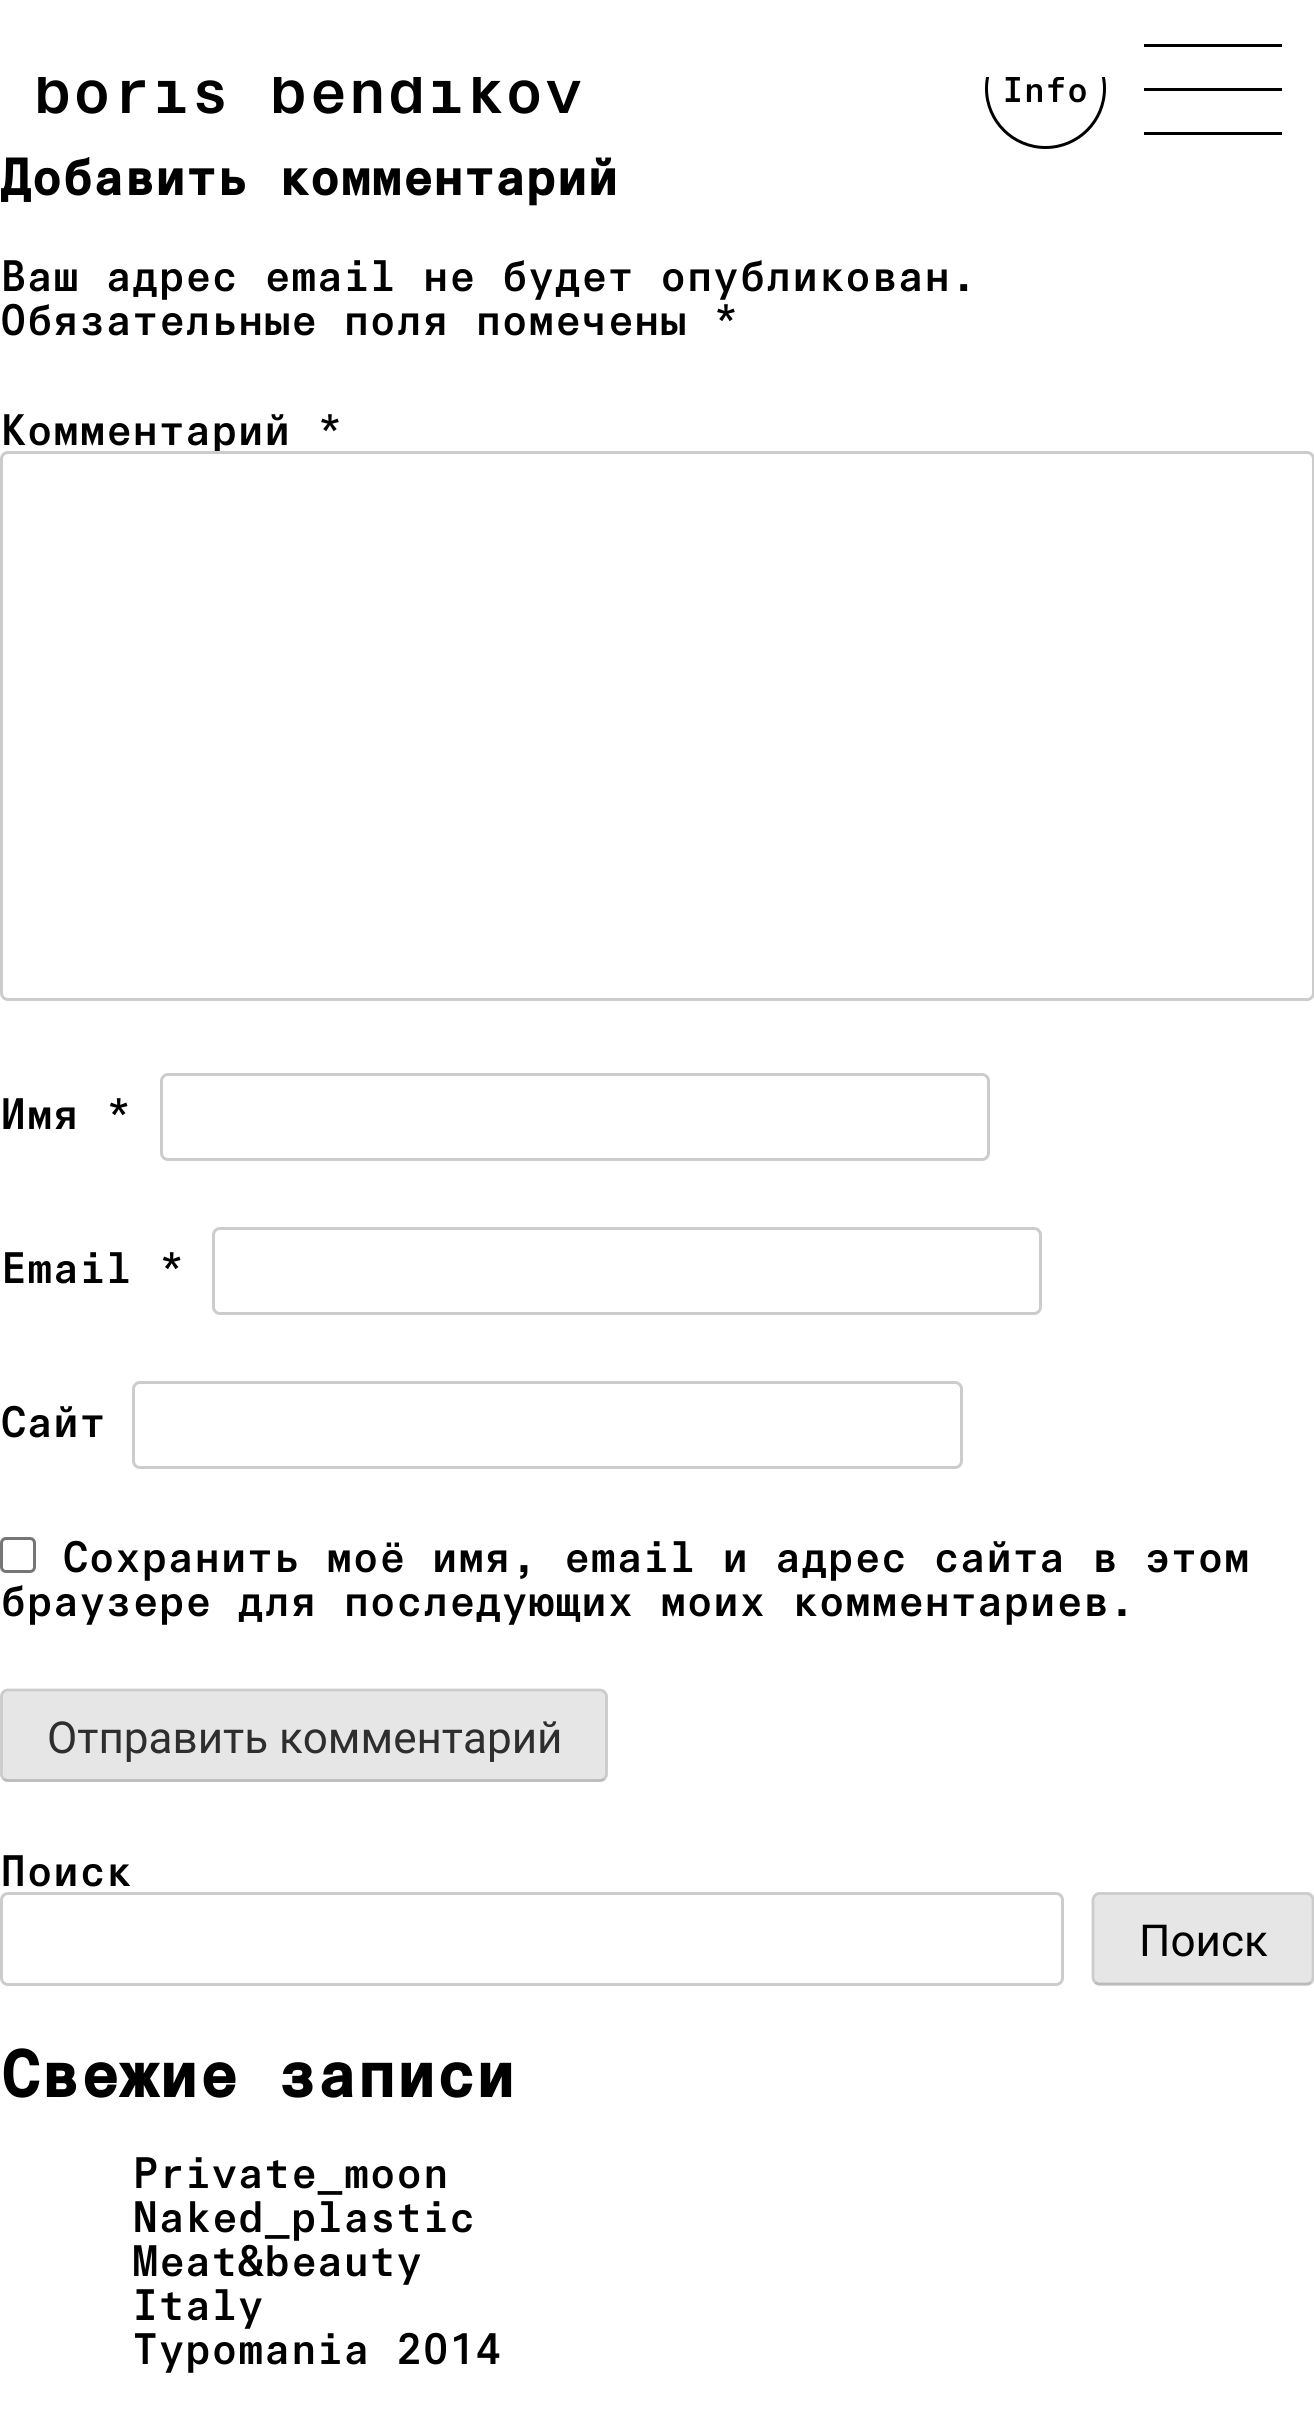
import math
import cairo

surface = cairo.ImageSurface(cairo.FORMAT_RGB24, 1314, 2420)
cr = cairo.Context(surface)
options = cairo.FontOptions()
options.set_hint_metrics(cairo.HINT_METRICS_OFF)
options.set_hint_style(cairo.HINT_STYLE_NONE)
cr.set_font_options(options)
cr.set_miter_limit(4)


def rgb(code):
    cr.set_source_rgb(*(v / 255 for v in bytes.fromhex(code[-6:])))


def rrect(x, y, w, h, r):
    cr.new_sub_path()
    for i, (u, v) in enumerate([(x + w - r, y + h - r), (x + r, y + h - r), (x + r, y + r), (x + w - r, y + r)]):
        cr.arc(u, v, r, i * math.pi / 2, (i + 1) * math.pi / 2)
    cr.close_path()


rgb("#ffffff")
cr.paint()
cr.arc(1045.5, 88.5, 59, 0, 2 * math.pi)
rgb("#000000")
cr.set_line_width(3)
cr.stroke()
for x, y, w, h, color in [
    (1144, 44, 138, 3, "#000000"),
    (1144, 88, 138, 3, "#000000"),
    (1144, 132, 138, 3, "#000000"),
]:
    rgb(color)
    cr.rectangle(x, y, w, h)
    cr.fill()
rrect(161.5, 1074.5, 827, 85, 6.5)
rgb("#cccccc")
cr.stroke()
rrect(213.5, 1228.5, 827, 85, 6.5)
cr.stroke()
rrect(133.5, 1382.5, 828, 85, 6.5)
cr.stroke()
rrect(1.5, 1538.5, 33, 33, 4.5)
rgb("#767676")
cr.stroke()
rgb("#e6e6e6")
rrect(0, 1689, 608, 93, 8)
cr.fill()
cr.new_path()
cr.move_to(604.5, 1778.5)
cr.curve_to(603, 1780, 601.5, 1780.5, 599.5, 1780.5)
cr.line_to(8.5, 1780.5)
cr.curve_to(6.5, 1780.5, 4.5, 1780, 3.5, 1778.5)
rgb("#bbbbbb")
cr.set_line_width(2.8)
cr.stroke()
cr.new_path()
cr.move_to(3.5, 1778.5)
cr.curve_to(2, 1777.5, 1.5, 1775.5, 1.5, 1774)
cr.line_to(1.5, 1697)
cr.curve_to(1.5, 1695, 2, 1693, 3.5, 1692)
cr.curve_to(4.5, 1690.5, 6.5, 1690, 8, 1690)
cr.line_to(599.5, 1690)
cr.curve_to(601.5, 1690, 603, 1690.5, 604.5, 1692)
cr.curve_to(605.5, 1693, 606.5, 1695, 606.5, 1697)
cr.line_to(606.5, 1774)
cr.curve_to(606.5, 1775.5, 605.5, 1777.5, 604.5, 1778.5)
rgb("#cccccc")
cr.stroke()
rrect(1.5, 1893.5, 1061, 91, 6.5)
cr.set_line_width(3)
cr.stroke()
rgb("#e6e6e6")
rrect(1092, 1892, 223, 94, 8)
cr.fill()
cr.new_path()
cr.move_to(1311, 1982)
cr.curve_to(1310, 1983.5, 1308, 1984, 1306, 1984)
cr.line_to(1100, 1984)
cr.curve_to(1098, 1984, 1096.5, 1983.5, 1095, 1982)
rgb("#bbbbbb")
cr.set_line_width(2.8)
cr.stroke()
cr.new_path()
cr.move_to(1095, 1982)
cr.curve_to(1094, 1981, 1093, 1979, 1093, 1977)
cr.line_to(1093, 1900)
cr.curve_to(1093, 1898.5, 1094, 1896.5, 1095, 1895.5)
cr.curve_to(1096.5, 1894, 1098, 1893.5, 1100, 1893.5)
cr.line_to(1306, 1893.5)
cr.curve_to(1308, 1893.5, 1310, 1894, 1311, 1895.5)
cr.curve_to(1312.5, 1896.5, 1313, 1898.5, 1313, 1900)
cr.line_to(1313, 1977)
cr.curve_to(1313, 1979, 1312.5, 1981, 1311, 1982)
rgb("#cccccc")
cr.stroke()
cr.select_font_face("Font")
cr.set_font_size(65.5)
rgb("#000000")
cr.move_to(33, 113)
cr.show_text("boris bendikov")
cr.set_font_size(36)
cr.move_to(1002, 102)
cr.show_text("Info")
rgb("#ffffff")
cr.rectangle(38, 28, 1067, 49)
cr.fill()
cr.select_font_face("Font", cairo.FONT_SLANT_NORMAL, cairo.FONT_WEIGHT_BOLD)
cr.set_font_size(51.5)
rgb("#000000")
cr.move_to(0, 195)
cr.show_text("Добавить комментарий")
cr.select_font_face("Font")
cr.set_font_size(44)
for x, y, s in [
    (0, 291, "Ваш адрес email не будет опубликован."),
    (0, 335, "Обязательные поля помечены *"),
    (0, 445, "Комментарий *"),
]:
    cr.move_to(x, y)
    cr.show_text(s)
rgb("#ffffff")
rrect(1.5, 452.5, 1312, 547, 6.5)
cr.fill_preserve()
rgb("#cccccc")
cr.set_line_width(3)
cr.stroke()
rgb("#000000")
for x, y, s in [
    (0, 1129, "Имя *"),
    (0, 1283, "Email *"),
    (0, 1437, "Сайт"),
    (62, 1572, "Сохранить моё имя, email и адрес сайта в этом"),
    (0, 1616, "браузере для последующих моих комментариев."),
]:
    cr.move_to(x, y)
    cr.show_text(s)
cr.select_font_face("Roboto")
rgb("#2e2e2e")
cr.move_to(47, 1753)
cr.show_text("Отправить комментарий")
cr.select_font_face("Font")
rgb("#000000")
cr.move_to(0, 1886)
cr.show_text("Поиск")
cr.select_font_face("Roboto")
cr.move_to(1139, 1956)
cr.show_text("Поиск")
cr.select_font_face("Font", cairo.FONT_SLANT_NORMAL, cairo.FONT_WEIGHT_BOLD)
cr.set_font_size(66)
cr.move_to(0, 2097)
cr.show_text("Свежие записи")
cr.select_font_face("Font")
cr.set_font_size(44)
for x, y, s in [
    (132, 2188, "Private_moon"),
    (132, 2232, "Naked_plastic"),
    (132, 2276, "Meat&beauty"),
    (132, 2320, "Italy"),
    (132, 2364, "Typomania 2014"),
]:
    cr.move_to(x, y)
    cr.show_text(s)
surface.write_to_png("page.png")
